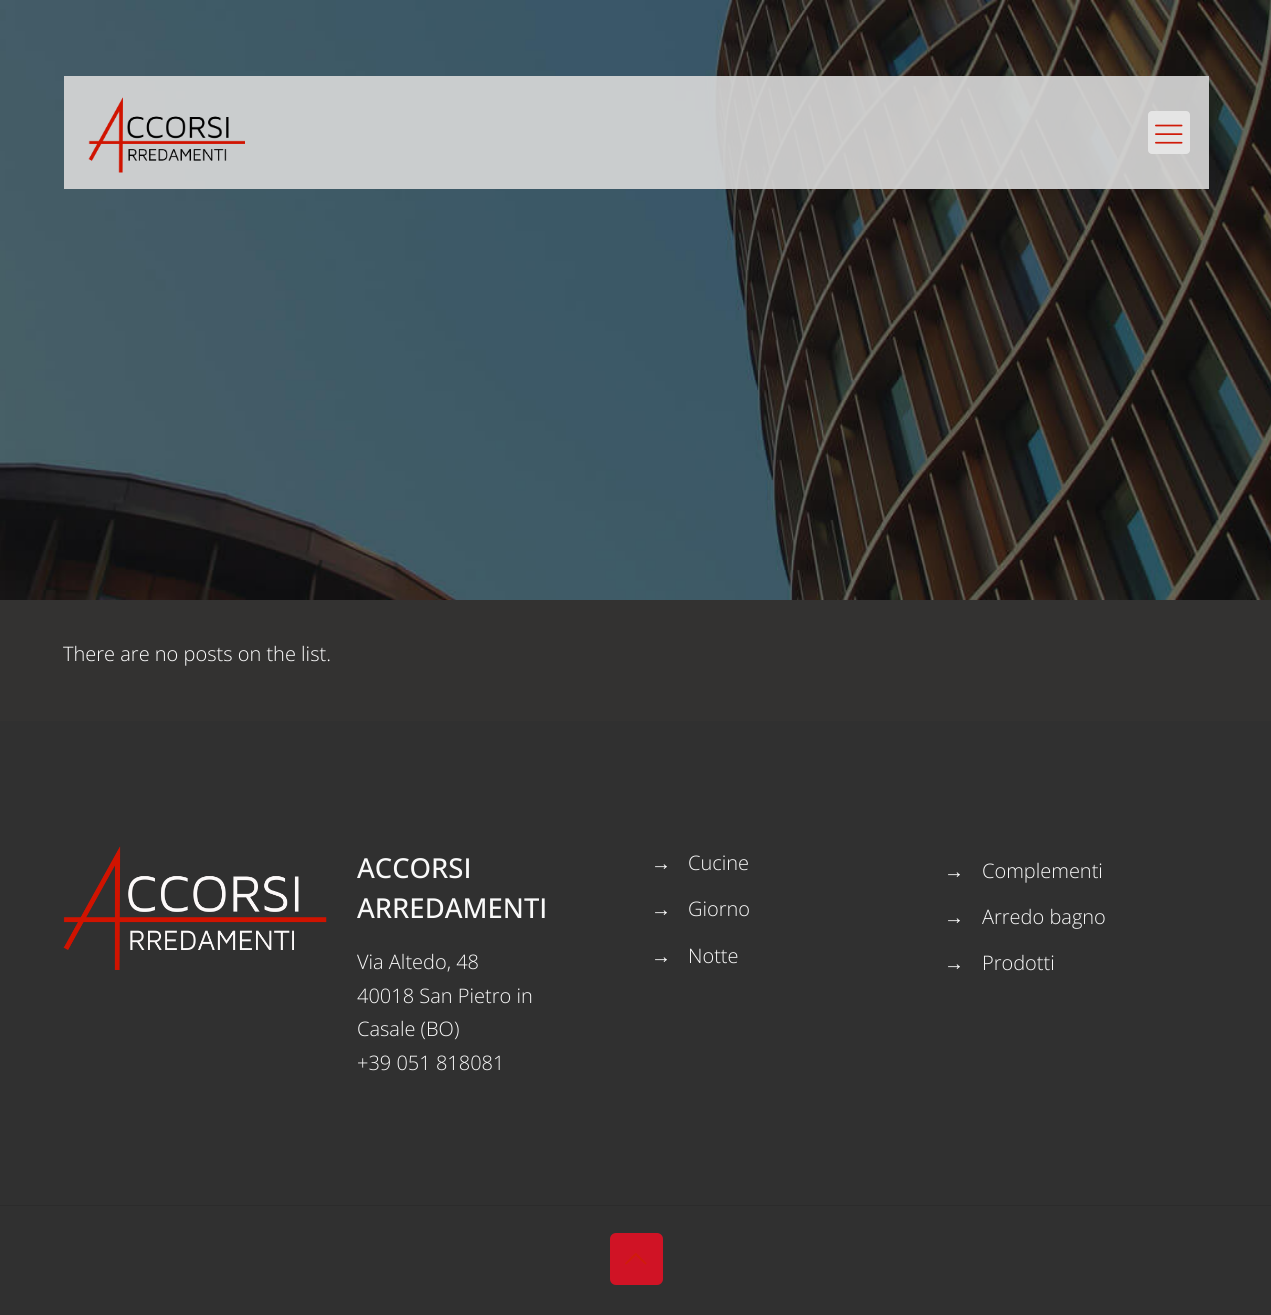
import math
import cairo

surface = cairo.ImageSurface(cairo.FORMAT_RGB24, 1271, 1315)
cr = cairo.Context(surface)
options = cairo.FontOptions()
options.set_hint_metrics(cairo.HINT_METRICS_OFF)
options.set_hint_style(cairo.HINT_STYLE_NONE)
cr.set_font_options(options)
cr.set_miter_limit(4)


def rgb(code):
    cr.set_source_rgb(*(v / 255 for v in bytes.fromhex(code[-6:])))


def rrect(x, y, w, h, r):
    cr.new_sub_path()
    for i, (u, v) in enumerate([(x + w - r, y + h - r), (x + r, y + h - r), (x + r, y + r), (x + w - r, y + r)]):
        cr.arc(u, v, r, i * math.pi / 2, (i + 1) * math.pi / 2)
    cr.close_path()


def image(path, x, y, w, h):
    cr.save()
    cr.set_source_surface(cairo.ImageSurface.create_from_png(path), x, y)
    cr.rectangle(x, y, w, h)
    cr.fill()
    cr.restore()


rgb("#333231")
cr.paint()
image("img/1.png", 0, 0, 1271, 600)
cr.set_source_rgba(0.855, 0.855, 0.855, 0.9)
cr.rectangle(64, 76, 1145, 113)
cr.fill()
image("img/2.png", 88, 97, 157, 76)
rgb("#e5e5e5")
rrect(1148, 111, 42, 43, 4)
cr.fill()
image("img/3.png", 1155, 124, 28, 20)
rgb("#303030")
cr.rectangle(0, 721, 1271, 594)
cr.fill()
image("img/4.png", 63, 846, 264, 124)
rgb("#2b2b2b")
cr.rectangle(0, 1205, 1271, 1)
cr.fill()
rgb("#d01325")
rrect(610, 1233, 53, 52, 6)
cr.fill()
image("img/5.png", 625, 1253, 22, 12)
cr.select_font_face("Open Sans Light")
cr.set_font_size(20)
rgb("#ffffff")
cr.move_to(63, 661)
cr.show_text("There are no posts on the list.")
cr.select_font_face("Open Sans Medium")
cr.set_font_size(27.5)
rgb("#f9f9f9")
cr.move_to(357, 878)
cr.show_text("ACCORSI")
cr.move_to(357, 918)
cr.show_text("ARREDAMENTI")
cr.select_font_face("Open Sans Light")
cr.set_font_size(20)
for x, y, s in [
    (357, 969, "Via Altedo, 48"),
    (357, 1003, "40018 San Pietro in"),
    (357, 1036, "Casale (BO)"),
    (357, 1070, "+39 051 818081"),
]:
    cr.move_to(x, y)
    cr.show_text(s)
cr.select_font_face("Liberation Sans")
rgb("#ffffff")
cr.move_to(651, 870)
cr.show_text("→")
cr.select_font_face("Open Sans Light")
rgb("#f9f9f9")
cr.move_to(688, 870)
cr.show_text("Cucine")
cr.select_font_face("Liberation Sans")
rgb("#ffffff")
cr.move_to(651, 916)
cr.show_text("→")
cr.select_font_face("Open Sans Light")
rgb("#f9f9f9")
cr.move_to(688, 916)
cr.show_text("Giorno")
cr.select_font_face("Liberation Sans")
rgb("#ffffff")
cr.move_to(651, 963)
cr.show_text("→")
cr.select_font_face("Open Sans Light")
rgb("#f9f9f9")
cr.move_to(688, 963)
cr.show_text("Notte")
cr.select_font_face("Liberation Sans")
rgb("#ffffff")
cr.move_to(944, 878)
cr.show_text("→")
cr.select_font_face("Open Sans Light")
rgb("#f9f9f9")
cr.move_to(982, 878)
cr.show_text("Complementi")
cr.select_font_face("Liberation Sans")
rgb("#ffffff")
cr.move_to(944, 924)
cr.show_text("→")
cr.select_font_face("Open Sans Light")
rgb("#f9f9f9")
cr.move_to(982, 924)
cr.show_text("Arredo bagno")
cr.select_font_face("Liberation Sans")
rgb("#ffffff")
cr.move_to(944, 970)
cr.show_text("→")
cr.select_font_face("Open Sans Light")
rgb("#f9f9f9")
cr.move_to(982, 970)
cr.show_text("Prodotti")
surface.write_to_png("page.png")
